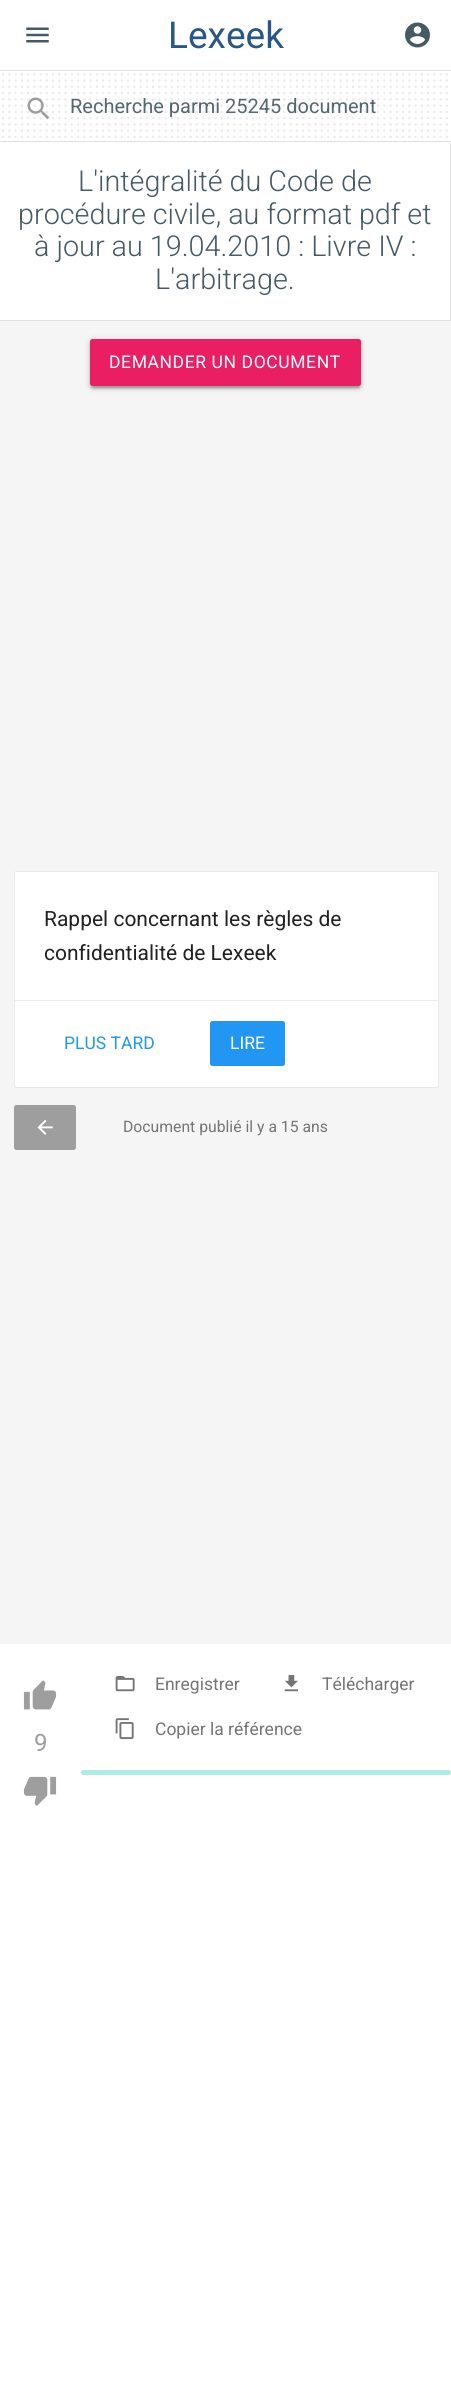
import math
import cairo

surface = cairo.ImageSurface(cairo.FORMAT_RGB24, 451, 2399)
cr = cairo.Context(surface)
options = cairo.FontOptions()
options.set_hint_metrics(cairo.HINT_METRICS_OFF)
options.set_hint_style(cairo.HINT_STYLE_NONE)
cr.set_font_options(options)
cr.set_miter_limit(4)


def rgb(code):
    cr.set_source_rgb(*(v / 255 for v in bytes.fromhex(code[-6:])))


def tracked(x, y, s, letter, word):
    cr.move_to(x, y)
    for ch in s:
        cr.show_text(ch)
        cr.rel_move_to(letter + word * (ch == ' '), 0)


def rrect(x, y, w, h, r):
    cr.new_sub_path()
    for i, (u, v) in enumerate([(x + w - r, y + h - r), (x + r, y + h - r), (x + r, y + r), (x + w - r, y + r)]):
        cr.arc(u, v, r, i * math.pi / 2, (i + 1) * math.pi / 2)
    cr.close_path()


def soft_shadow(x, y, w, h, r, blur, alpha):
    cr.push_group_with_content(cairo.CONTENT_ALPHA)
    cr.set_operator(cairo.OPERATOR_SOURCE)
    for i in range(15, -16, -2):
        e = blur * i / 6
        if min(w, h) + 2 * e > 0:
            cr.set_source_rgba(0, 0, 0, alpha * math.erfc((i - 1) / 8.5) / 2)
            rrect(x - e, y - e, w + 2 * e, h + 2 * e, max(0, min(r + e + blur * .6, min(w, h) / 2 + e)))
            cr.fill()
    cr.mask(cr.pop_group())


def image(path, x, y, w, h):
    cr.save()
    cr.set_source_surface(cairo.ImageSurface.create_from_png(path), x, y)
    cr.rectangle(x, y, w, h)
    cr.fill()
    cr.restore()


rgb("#ffffff")
cr.paint()
image("img/1.png", 26, 27, 23, 16)
image("img/2.png", 405, 22, 25, 26)
rgb("#e0e0e0")
cr.rectangle(0, 70, 451, 1)
cr.fill()
cr.new_path()
cr.move_to(3.1, 74.4)
cr.line_to(447.1, 74.4)
rgb("#ebebeb")
cr.set_line_width(2.5)
cr.set_line_cap(cairo.LINE_CAP_ROUND)
cr.set_dash([0, 6.25])
cr.stroke()
cr.new_path()
cr.move_to(3.1, 80.6)
cr.line_to(447.1, 80.6)
cr.stroke()
cr.new_path()
cr.move_to(3.1, 86.9)
cr.line_to(447.1, 86.9)
cr.stroke()
cr.new_path()
cr.move_to(3.1, 93.1)
cr.line_to(447.1, 93.1)
cr.stroke()
cr.new_path()
cr.move_to(3.1, 99.4)
cr.line_to(447.1, 99.4)
cr.stroke()
cr.new_path()
cr.move_to(3.1, 105.6)
cr.line_to(447.1, 105.6)
cr.stroke()
cr.new_path()
cr.move_to(3.1, 111.9)
cr.line_to(447.1, 111.9)
cr.stroke()
cr.new_path()
cr.move_to(3.1, 118.1)
cr.line_to(447.1, 118.1)
cr.stroke()
cr.new_path()
cr.move_to(3.1, 124.4)
cr.line_to(447.1, 124.4)
cr.stroke()
cr.new_path()
cr.move_to(3.1, 130.6)
cr.line_to(447.1, 130.6)
cr.stroke()
cr.new_path()
cr.move_to(3.1, 136.9)
cr.line_to(447.1, 136.9)
cr.stroke()
image("img/3.png", 27, 97, 23, 23)
for x, y, w, h, color in [
    (0, 141, 451, 1, "#e0e0e0"),
    (450, 143, 1, 177, "#e0e0e0"),
    (0, 320, 451, 1, "#e0e0e0"),
    (0, 321, 451, 1323, "#f5f5f5"),
]:
    rgb(color)
    cr.rectangle(x, y, w, h)
    cr.fill()
rgb("#000000")
soft_shadow(90, 340, 271, 48, 2.5, 3, 0.2)
soft_shadow(93, 345, 266, 43, 0, 0.5, 0.12)
soft_shadow(90, 341, 271, 48, 2.5, 1, 0.14)
rgb("#e91e63")
rrect(90, 339, 271, 47, 2.5)
cr.fill()
rgb("#ffffff")
rrect(14.5, 871.5, 424, 216, 2)
cr.fill_preserve()
rgb("#e9e9e9")
cr.set_line_width(1)
cr.set_line_cap(cairo.LINE_CAP_BUTT)
cr.set_dash([])
cr.stroke()
rgb("#ececec")
cr.rectangle(15, 1000, 423, 1)
cr.fill()
rgb("#2196f3")
rrect(210, 1021, 75, 45, 2.5)
cr.fill()
rgb("#9e9e9e")
rrect(14, 1105, 62, 45, 2.5)
cr.fill()
image("img/4.png", 37, 1119, 16, 16)
image("img/5.png", 115, 1676, 20, 16)
image("img/6.png", 284, 1675, 14, 17)
image("img/7.png", 115, 1718, 19, 22)
rgb("#acece6")
rrect(81, 1770, 370, 5, 2.5)
cr.fill()
image("img/8.png", 23, 1680, 34, 30)
image("img/9.png", 23, 1776, 34, 30)
cr.select_font_face("Roboto")
cr.set_font_size(37)
rgb("#295689")
cr.move_to(168, 48)
cr.show_text("Lexeek")
cr.set_font_size(20)
rgb("#556871")
cr.move_to(70, 113)
cr.show_text("Recherche parmi 25245 document")
cr.select_font_face("Roboto Light")
cr.set_font_size(28.75)
rgb("#455a64")
for x, y, s in [
    (78, 191, "L'intégralité du Code de"),
    (18, 224, "procédure civile, au format pdf et"),
    (34, 256, "à jour au 19.04.2010 : Livre IV :"),
    (155, 289, "L'arbitrage."),
]:
    cr.move_to(x, y)
    cr.show_text(s)
cr.select_font_face("Roboto")
cr.set_font_size(17.5)
rgb("#ffffff")
tracked(109, 368, "DEMANDER UN DOCUMENT", 0.6, 0)
cr.set_font_size(21)
rgb("#212121")
cr.move_to(44, 926)
cr.show_text("Rappel concernant les règles de")
cr.move_to(44, 960)
cr.show_text("confidentialité de Lexeek")
cr.set_font_size(17.5)
rgb("#2196f3")
cr.move_to(64, 1049)
cr.show_text("PLUS TARD")
rgb("#ffffff")
cr.move_to(230, 1049)
cr.show_text("LIRE")
cr.set_font_size(15.75)
rgb("#757575")
cr.move_to(123, 1132)
cr.show_text("Document publié il y a 15 ans")
cr.set_font_size(17.5)
for x, y, s in [
    (155, 1690, "Enregistrer"),
    (322, 1690, "Télécharger"),
    (155, 1735, "Copier la référence"),
]:
    cr.move_to(x, y)
    cr.show_text(s)
cr.set_font_size(24)
rgb("#9e9e9e")
cr.move_to(34, 1751)
cr.show_text("9")
surface.write_to_png("page.png")
